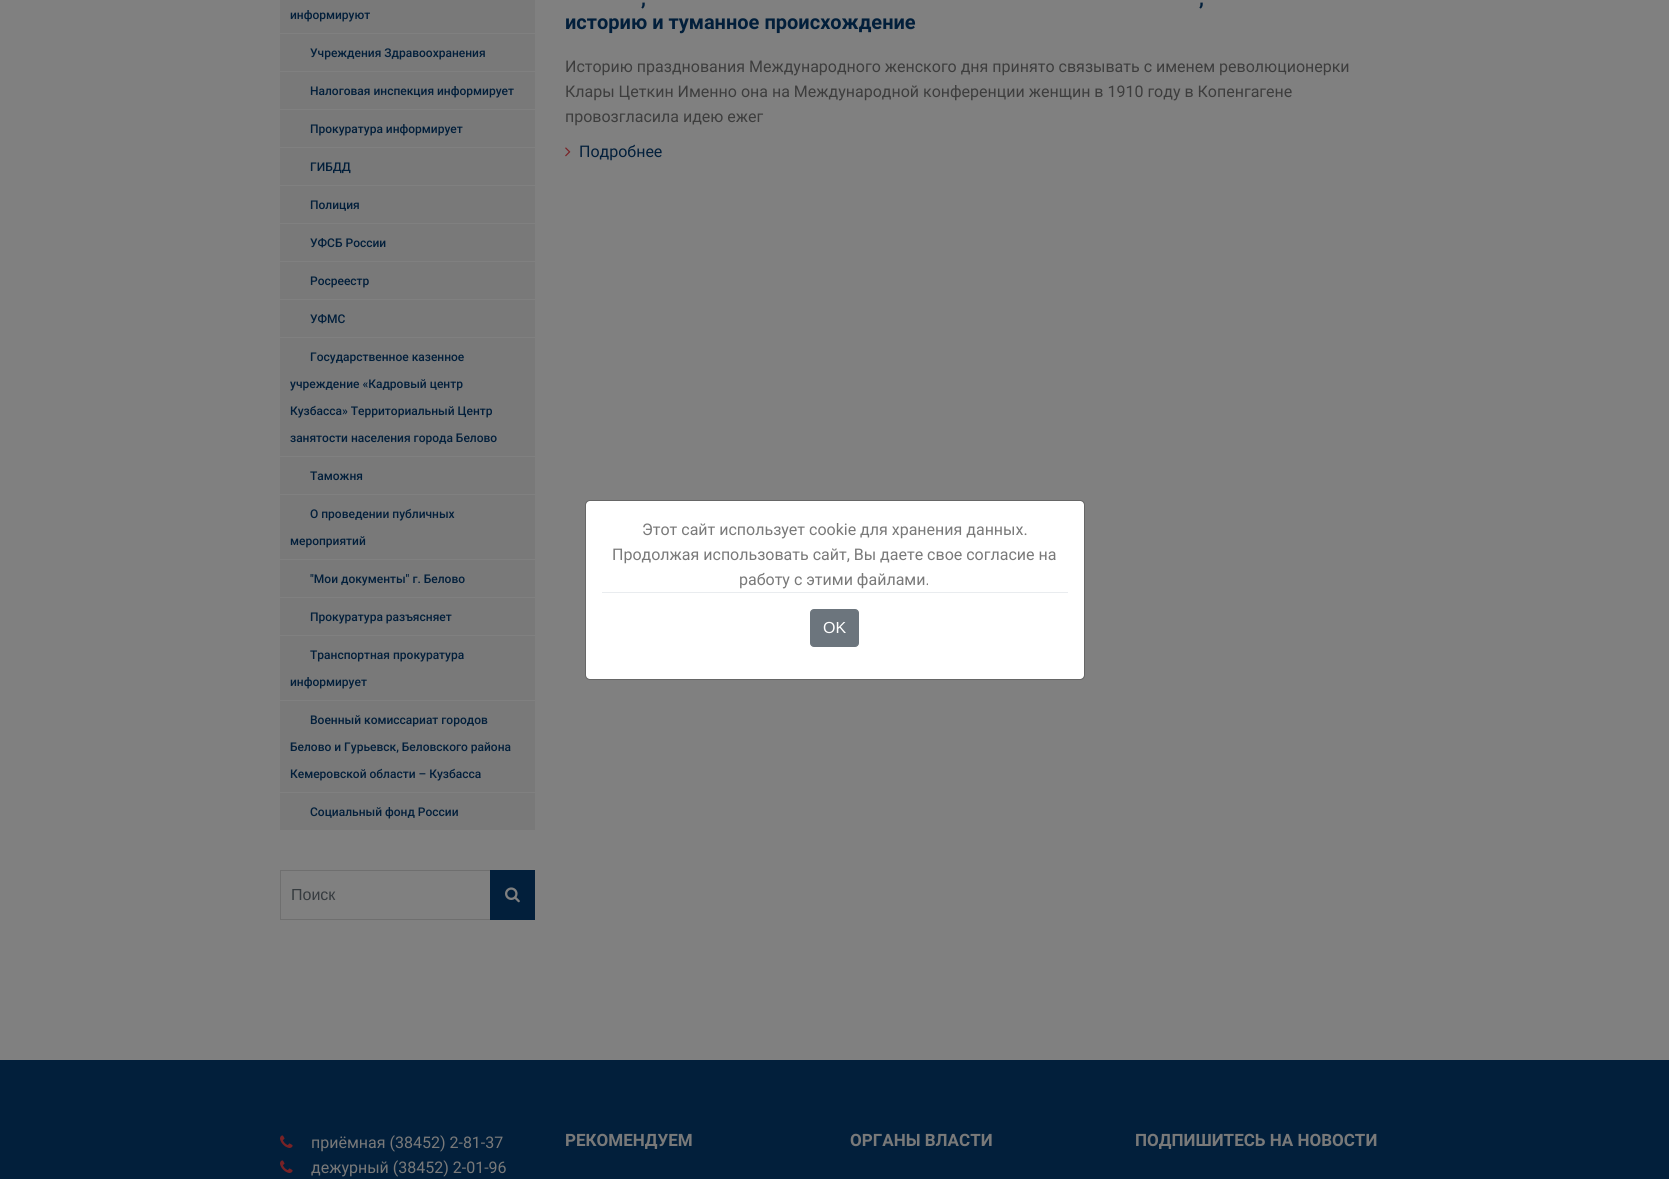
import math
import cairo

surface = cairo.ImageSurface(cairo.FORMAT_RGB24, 1669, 1179)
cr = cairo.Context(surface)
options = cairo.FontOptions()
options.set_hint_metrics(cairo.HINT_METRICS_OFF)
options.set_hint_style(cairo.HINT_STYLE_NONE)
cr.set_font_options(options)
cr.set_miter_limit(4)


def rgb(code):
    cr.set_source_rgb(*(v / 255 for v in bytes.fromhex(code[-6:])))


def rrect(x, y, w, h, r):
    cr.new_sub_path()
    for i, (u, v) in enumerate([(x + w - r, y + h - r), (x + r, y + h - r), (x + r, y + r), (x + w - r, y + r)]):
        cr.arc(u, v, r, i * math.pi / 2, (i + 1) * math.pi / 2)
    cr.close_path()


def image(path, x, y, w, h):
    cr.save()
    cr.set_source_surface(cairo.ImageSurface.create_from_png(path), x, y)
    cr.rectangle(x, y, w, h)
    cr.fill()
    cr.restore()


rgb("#808080")
cr.paint()
for x, y, w, h, color in [
    (280, 0, 255, 830, "#797979"),
    (280, 33, 255, 1, "#808080"),
    (280, 71, 255, 1, "#808080"),
    (280, 109, 255, 1, "#808080"),
    (280, 147, 255, 1, "#808080"),
    (280, 185, 255, 1, "#808080"),
    (280, 223, 255, 1, "#808080"),
    (280, 261, 255, 1, "#808080"),
    (280, 299, 255, 1, "#808080"),
    (280, 337, 255, 1, "#808080"),
    (280, 456, 255, 1, "#808080"),
    (280, 494, 255, 1, "#808080"),
    (280, 559, 255, 1, "#808080"),
    (280, 597, 255, 1, "#808080"),
    (280, 635, 255, 1, "#808080"),
    (280, 700, 255, 1, "#808080"),
    (280, 792, 255, 1, "#808080"),
]:
    rgb(color)
    cr.rectangle(x, y, w, h)
    cr.fill()
cr.rectangle(280.5, 870.5, 210, 49)
rgb("#6f6f6f")
cr.set_line_width(1)
cr.stroke()
rgb("#021f3b")
cr.rectangle(490, 870, 45, 50)
cr.fill()
image("img/1.png", 505, 887, 15, 16)
image("img/2.png", 565, 147, 6, 10)
rgb("#ffffff")
rrect(586, 501, 498, 178, 4)
cr.fill()
rrect(585.5, 500.5, 499, 179, 4.5)
cr.set_source_rgba(0, 0, 0, 0.2)
cr.stroke()
rgb("#e9ecef")
cr.rectangle(602, 592, 466, 1)
cr.fill()
rgb("#6c757d")
rrect(810.5, 609.5, 48, 37, 3.5)
cr.fill_preserve()
cr.stroke()
rgb("#021f3b")
cr.rectangle(0, 1060, 1669, 119)
cr.fill()
image("img/3.png", 280, 1135, 13, 13)
image("img/3.png", 280, 1160, 13, 13)
cr.select_font_face("Roboto Medium")
cr.set_font_size(12)
for x, y, s in [
    (290, 19, "информируют"),
    (310, 57, "Учреждения Здравоохранения"),
    (310, 95, "Налоговая инспекция информирует"),
    (310, 133, "Прокуратура информирует"),
    (310, 171, "ГИБДД"),
    (310, 209, "Полиция"),
    (310, 247, "УФСБ России"),
    (310, 285, "Росреестр"),
    (310, 323, "УФМС"),
    (310, 361, "Государственное казенное"),
    (290, 388, "учреждение «Кадровый центр"),
    (290, 415, "Кузбасса» Территориальный Центр"),
    (290, 442, "занятости населения города Белово"),
    (310, 480, "Таможня"),
    (310, 518, "О проведении публичных"),
    (290, 545, "мероприятий"),
    (310, 583, "\"Мои документы\" г. Белово"),
    (310, 621, "Прокуратура разъясняет"),
    (310, 659, "Транспортная прокуратура"),
    (290, 686, "информирует"),
    (310, 724, "Военный комиссариат городов"),
    (290, 751, "Белово и Гурьевск, Беловского района"),
    (290, 778, "Кемеровской области – Кузбасса"),
    (310, 816, "Социальный фонд России"),
]:
    cr.move_to(x, y)
    cr.show_text(s)
cr.select_font_face("Liberation Sans")
cr.set_font_size(16)
rgb("#363b3f")
cr.move_to(291, 900)
cr.show_text("Поиск")
cr.select_font_face("Roboto", cairo.FONT_SLANT_NORMAL, cairo.FONT_WEIGHT_BOLD)
cr.set_font_size(20)
rgb("#021f3b")
for x, y, s in [
    (641, 5, ","),
    (1199, 5, ","),
    (565, 29, "историю и туманное происхождение"),
]:
    cr.move_to(x, y)
    cr.show_text(s)
cr.select_font_face("Roboto")
cr.set_font_size(16)
rgb("#3d3d3d")
for x, y, s in [
    (565, 72, "Историю празднования Международного женского дня принято связывать с именем революционерки"),
    (565, 97, "Клары Цеткин Именно она на Международной конференции женщин в 1910 году в Копенгагене"),
    (565, 122, "провозгласила идею ежег"),
]:
    cr.move_to(x, y)
    cr.show_text(s)
rgb("#021f3b")
cr.move_to(579, 157)
cr.show_text("Подробнее")
rgb("#797979")
for x, y, s in [
    (642, 535, "Этот сайт использует cookie для хранения данных."),
    (612, 560, "Продолжая использовать сайт, Вы даете свое согласие на"),
    (739, 585, "работу с этими файлами."),
]:
    cr.move_to(x, y)
    cr.show_text(s)
cr.select_font_face("Liberation Sans")
rgb("#ffffff")
cr.move_to(823, 633)
cr.show_text("OK")
cr.select_font_face("Roboto")
rgb("#797979")
cr.move_to(311, 1148)
cr.show_text("приёмная (38452) 2-81-37")
cr.move_to(311, 1173)
cr.show_text("дежурный (38452) 2-01-96")
cr.select_font_face("Roboto", cairo.FONT_SLANT_NORMAL, cairo.FONT_WEIGHT_BOLD)
cr.set_font_size(17)
for x, y, s in [
    (565, 1146, "РЕКОМЕНДУЕМ"),
    (850, 1146, "ОРГАНЫ ВЛАСТИ"),
    (1135, 1146, "ПОДПИШИТЕСЬ НА НОВОСТИ"),
]:
    cr.move_to(x, y)
    cr.show_text(s)
surface.write_to_png("page.png")
